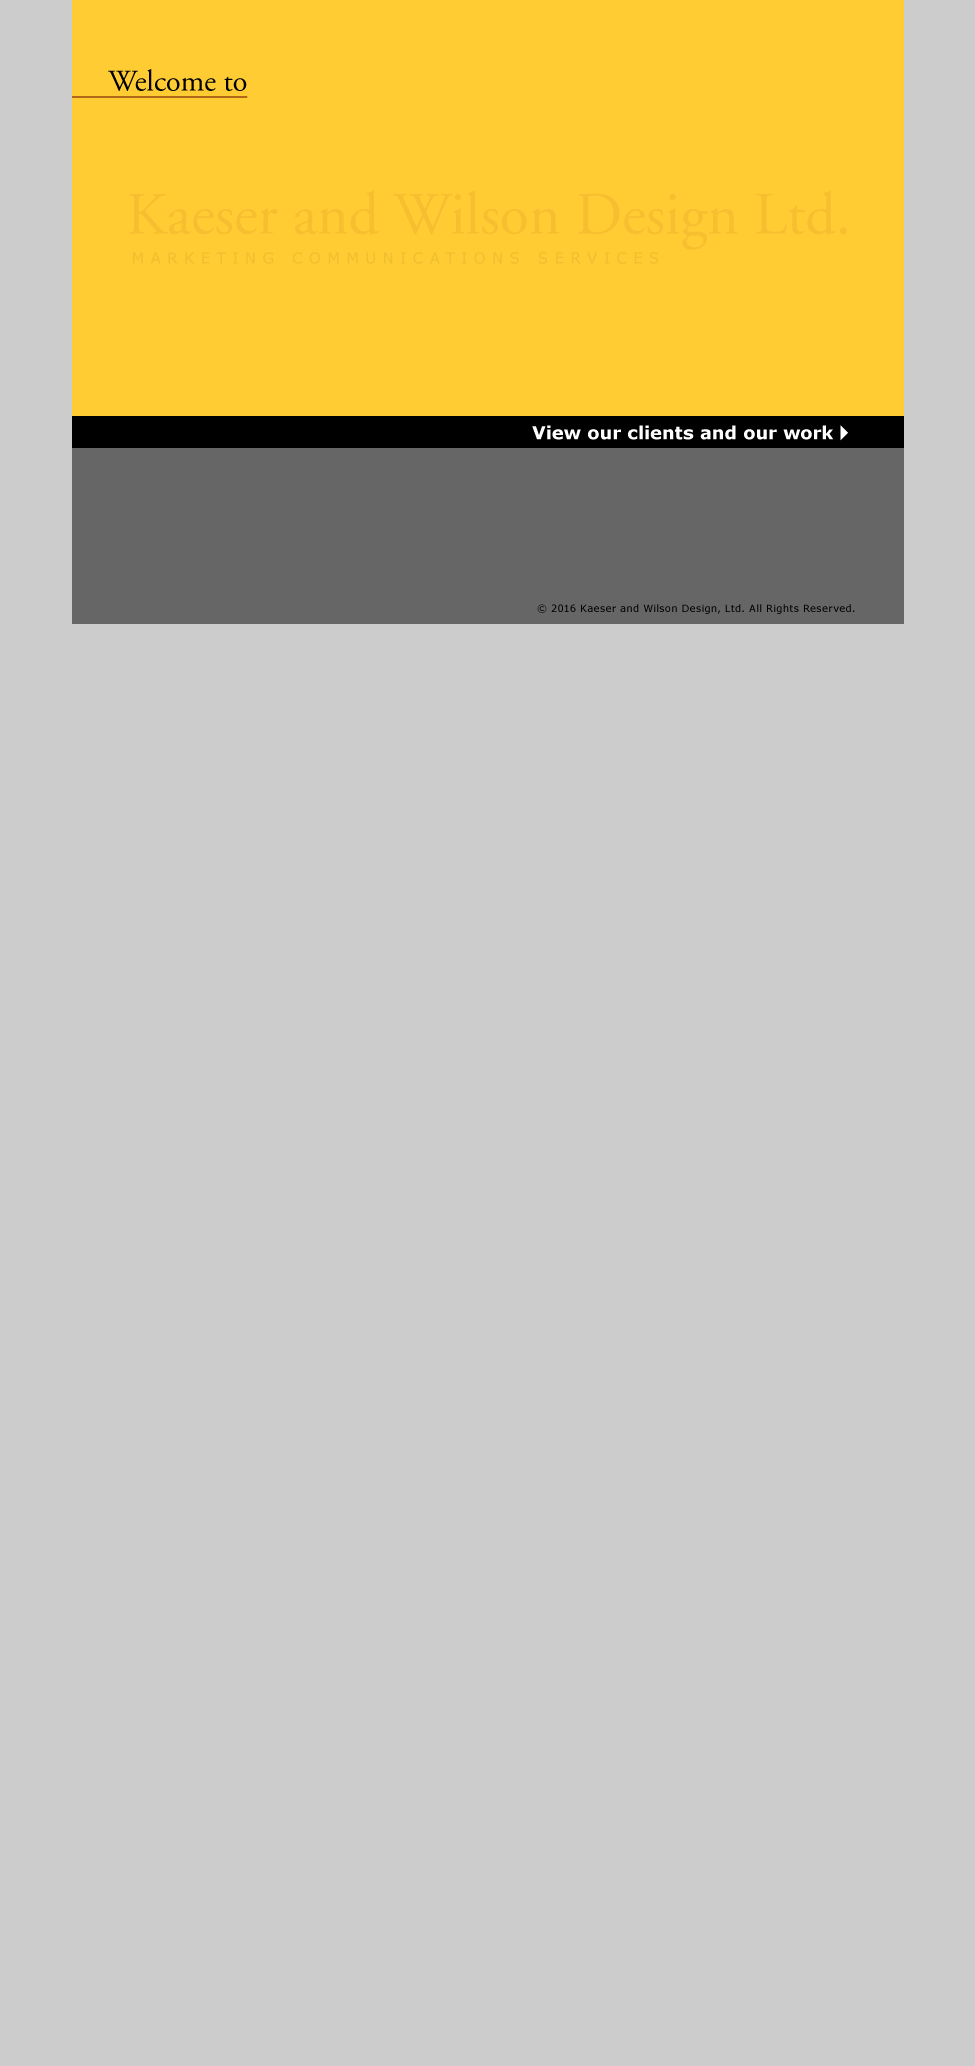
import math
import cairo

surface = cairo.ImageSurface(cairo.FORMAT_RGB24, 975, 2066)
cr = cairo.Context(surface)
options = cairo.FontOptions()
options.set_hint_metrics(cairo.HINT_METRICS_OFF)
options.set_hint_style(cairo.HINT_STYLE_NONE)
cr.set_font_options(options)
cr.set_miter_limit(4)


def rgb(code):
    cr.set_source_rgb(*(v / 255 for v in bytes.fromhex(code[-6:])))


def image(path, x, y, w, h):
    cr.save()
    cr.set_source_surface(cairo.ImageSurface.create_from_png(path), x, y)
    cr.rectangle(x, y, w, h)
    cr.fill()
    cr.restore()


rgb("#cccccc")
cr.paint()
rgb("#ffcc33")
cr.rectangle(72, 0, 832, 416)
cr.fill()
image("img/1.png", 72, 416, 832, 208)
image("img/2.png", 72, 68, 176, 30)
image("img/3.png", 129, 190, 718, 74)
image("img/4.png", 532, 425, 316, 16)
image("img/5.png", 537, 604, 318, 10)
surface.write_to_png("page.png")
